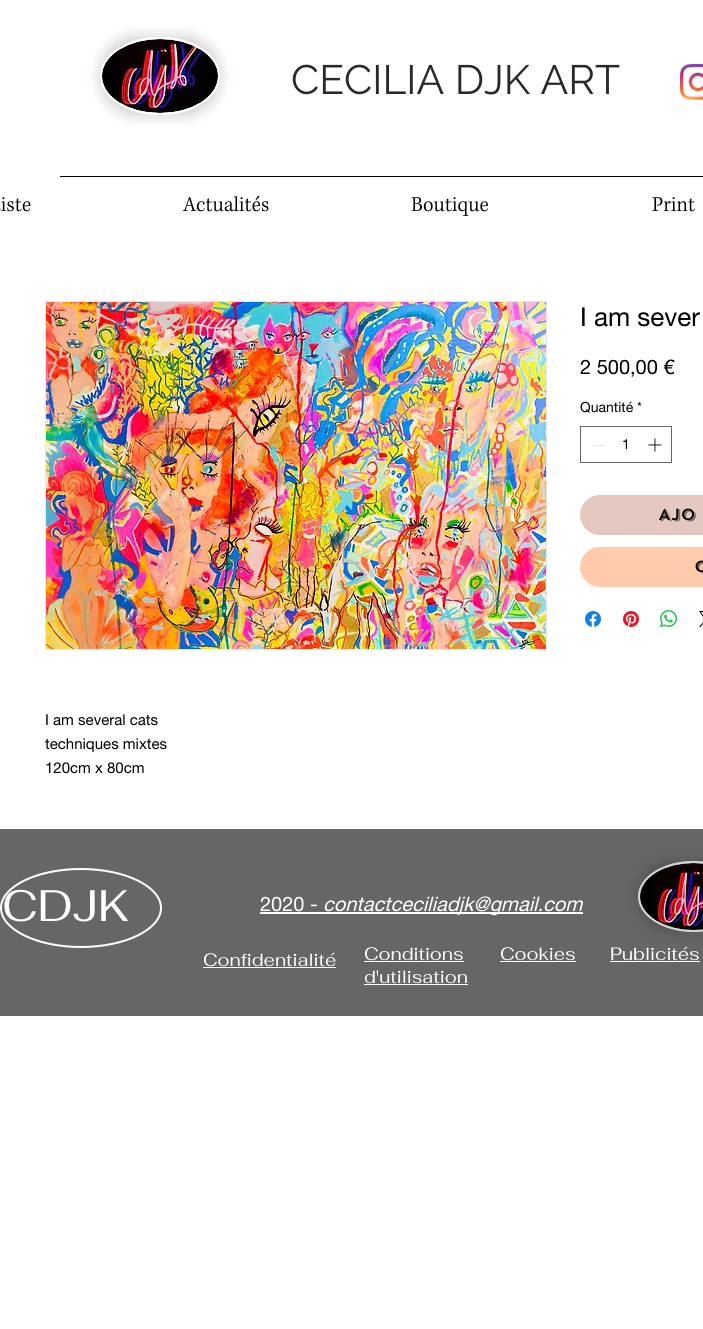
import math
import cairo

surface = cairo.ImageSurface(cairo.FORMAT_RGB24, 703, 1329)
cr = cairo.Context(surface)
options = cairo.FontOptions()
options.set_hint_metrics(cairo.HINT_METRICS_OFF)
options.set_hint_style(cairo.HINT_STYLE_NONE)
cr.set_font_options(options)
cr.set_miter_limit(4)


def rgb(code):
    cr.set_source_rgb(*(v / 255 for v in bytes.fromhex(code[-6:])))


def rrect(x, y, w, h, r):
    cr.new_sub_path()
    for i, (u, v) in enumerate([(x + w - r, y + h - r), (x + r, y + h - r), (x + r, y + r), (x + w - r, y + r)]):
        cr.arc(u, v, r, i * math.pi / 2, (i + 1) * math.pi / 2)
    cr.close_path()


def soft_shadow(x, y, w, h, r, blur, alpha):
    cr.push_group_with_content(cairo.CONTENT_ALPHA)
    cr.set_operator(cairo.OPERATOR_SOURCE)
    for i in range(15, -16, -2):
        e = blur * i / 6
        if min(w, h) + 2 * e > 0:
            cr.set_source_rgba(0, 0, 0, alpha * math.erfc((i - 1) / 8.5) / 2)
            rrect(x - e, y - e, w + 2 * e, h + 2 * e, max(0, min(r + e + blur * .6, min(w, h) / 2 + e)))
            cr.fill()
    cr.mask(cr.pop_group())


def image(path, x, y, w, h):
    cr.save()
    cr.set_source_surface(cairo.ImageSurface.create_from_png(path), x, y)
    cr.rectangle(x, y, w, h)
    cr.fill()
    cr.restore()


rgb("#ffffff")
cr.paint()
cr.save()
cr.set_fill_rule(cairo.FILL_RULE_EVEN_ODD)
cr.new_path()
cr.move_to(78, 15)
cr.line_to(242, 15)
cr.line_to(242, 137)
cr.line_to(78, 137)
cr.close_path()
cr.move_to(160, 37)
cr.curve_to(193, 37, 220, 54.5, 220, 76)
cr.curve_to(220, 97.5, 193, 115, 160, 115)
cr.curve_to(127, 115, 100, 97.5, 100, 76)
cr.curve_to(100, 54.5, 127, 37, 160, 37)
cr.close_path()
cr.clip()
rgb("#000000")
soft_shadow(100, 37, 120, 78, 39, 7, 0.2)
cr.restore()
cr.set_source_rgba(1, 1, 1, 0.48)
cr.new_path()
cr.move_to(160, 37)
cr.curve_to(193, 37, 220, 54.5, 220, 76)
cr.curve_to(220, 97.5, 193, 115, 160, 115)
cr.curve_to(127, 115, 100, 97.5, 100, 76)
cr.curve_to(100, 54.5, 127, 37, 160, 37)
cr.close_path()
cr.fill()
cr.new_path()
cr.move_to(160, 38)
cr.curve_to(192.5, 38, 219, 55, 219, 76)
cr.curve_to(219, 97, 192.5, 114, 160, 114)
cr.curve_to(127.5, 114, 101, 97, 101, 76)
cr.curve_to(101, 55, 127.5, 38, 160, 38)
cr.close_path()
cr.stroke()
image("img/1.png", 102, 39, 116, 74)
image("img/2.png", 680, 64, 23, 36)
rgb("#000000")
cr.rectangle(60, 176, 643, 1)
cr.fill()
image("img/3.png", 0, 197, 31, 15)
image("img/4.png", 182, 195, 87, 17)
image("img/5.png", 411, 197, 77, 20)
image("img/6.png", 652, 197, 43, 15)
cr.rectangle(580.5, 426.5, 91, 36)
rgb("#666666")
cr.set_line_width(1)
cr.stroke()
rgb("#e3e3e3")
cr.rectangle(592, 445, 13, 1)
cr.fill()
image("img/7.png", 648, 438, 14, 14)
rgb("#e5c9c1")
rrect(580, 495, 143, 40, 20)
cr.fill()
rgb("#ffcbaa")
rrect(580, 547, 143, 40, 20)
cr.fill()
image("img/8.png", 585, 611, 16, 16)
image("img/9.png", 623, 611, 16, 16)
image("img/10.png", 660, 610, 17, 17)
image("img/11.png", 699, 611, 4, 16)
cr.rectangle(45.5, 301.5, 501, 348)
rgb("#e8e6e6")
cr.stroke()
image("img/12.png", 46, 302, 500, 347)
rgb("#666666")
cr.rectangle(0, 829, 703, 187)
cr.fill()
cr.new_path()
cr.move_to(81, 869)
cr.curve_to(125, 869, 161, 886.5, 161, 908)
cr.curve_to(161, 929.5, 125, 947, 81, 947)
cr.curve_to(37, 947, 1, 929.5, 1, 908)
cr.curve_to(1, 886.5, 37, 869, 81, 869)
cr.close_path()
rgb("#ffffff")
cr.set_line_width(2)
cr.stroke()
cr.save()
cr.set_fill_rule(cairo.FILL_RULE_EVEN_ODD)
cr.new_path()
cr.move_to(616, 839)
cr.line_to(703, 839)
cr.line_to(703, 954)
cr.line_to(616, 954)
cr.close_path()
cr.move_to(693.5, 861)
cr.curve_to(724, 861, 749, 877, 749, 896.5)
cr.curve_to(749, 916, 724, 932, 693.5, 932)
cr.curve_to(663, 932, 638, 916, 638, 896.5)
cr.curve_to(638, 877, 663, 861, 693.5, 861)
cr.close_path()
cr.clip()
rgb("#000000")
soft_shadow(638, 861, 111, 71, 35.5, 7, 0.2)
cr.restore()
cr.set_source_rgba(1, 1, 1, 0.48)
cr.new_path()
cr.move_to(693.5, 861)
cr.curve_to(724, 861, 749, 877, 749, 896.5)
cr.curve_to(749, 916, 724, 932, 693.5, 932)
cr.curve_to(663, 932, 638, 916, 638, 896.5)
cr.curve_to(638, 877, 663, 861, 693.5, 861)
cr.close_path()
cr.fill()
cr.new_path()
cr.move_to(693.5, 862)
cr.curve_to(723.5, 862, 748, 877.5, 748, 896.5)
cr.curve_to(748, 915.5, 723.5, 931, 693.5, 931)
cr.curve_to(663.5, 931, 639, 915.5, 639, 896.5)
cr.curve_to(639, 877.5, 663.5, 862, 693.5, 862)
cr.close_path()
cr.stroke()
image("img/13.png", 640, 863, 63, 67)
for x, y, w, h, color in [
    (260, 912, 323, 2, "#ffffff"),
    (203, 967, 133, 1, "#ffffff"),
    (364, 961, 100, 1, "#ffffff"),
    (364, 984, 104, 1, "#ffffff"),
    (500, 961, 76, 1, "#ffffff"),
    (610, 961, 90, 1, "#ffffff"),
]:
    rgb(color)
    cr.rectangle(x, y, w, h)
    cr.fill()
cr.select_font_face("Raleway")
cr.set_font_size(41)
rgb("#292929")
cr.move_to(291, 94)
cr.show_text("CECILIA DJK ART")
cr.select_font_face("helvetica neue")
cr.set_font_size(26)
rgb("#000000")
cr.move_to(580, 326)
cr.show_text("I am sever")
cr.set_font_size(20)
cr.move_to(580, 374)
cr.show_text("2 500,00 €")
cr.set_font_size(14)
cr.move_to(580, 412)
cr.show_text("Quantité *")
cr.move_to(622, 449)
cr.show_text("1")
cr.select_font_face("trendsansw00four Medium")
cr.set_font_size(16)
cr.move_to(658, 520)
cr.show_text("Ajo")
cr.move_to(694, 572)
cr.show_text("C")
cr.select_font_face("helvetica neue")
cr.set_font_size(15)
for x, y, s in [
    (45, 725, "I am several cats"),
    (45, 749, "techniques mixtes"),
    (45, 773, "120cm x 80cm"),
]:
    cr.move_to(x, y)
    cr.show_text(s)
cr.select_font_face("Fahkwang")
cr.set_font_size(44)
rgb("#ffffff")
cr.move_to(2, 921)
cr.show_text("CDJK")
cr.select_font_face("helvetica neue")
cr.set_font_size(20)
cr.move_to(260, 911)
cr.show_text("2020 -")
cr.select_font_face("helvetica neue", cairo.FONT_SLANT_ITALIC)
cr.move_to(323, 911)
cr.show_text("contactceciliadjk@gmail.com")
cr.select_font_face("Fahkwang")
cr.set_font_size(18)
for x, y, s in [
    (203, 966, "Confidentialité"),
    (364, 960, "Conditions"),
    (364, 983, "d'utilisation"),
    (500, 960, "Cookies"),
    (610, 960, "Publicités"),
]:
    cr.move_to(x, y)
    cr.show_text(s)
surface.write_to_png("page.png")
